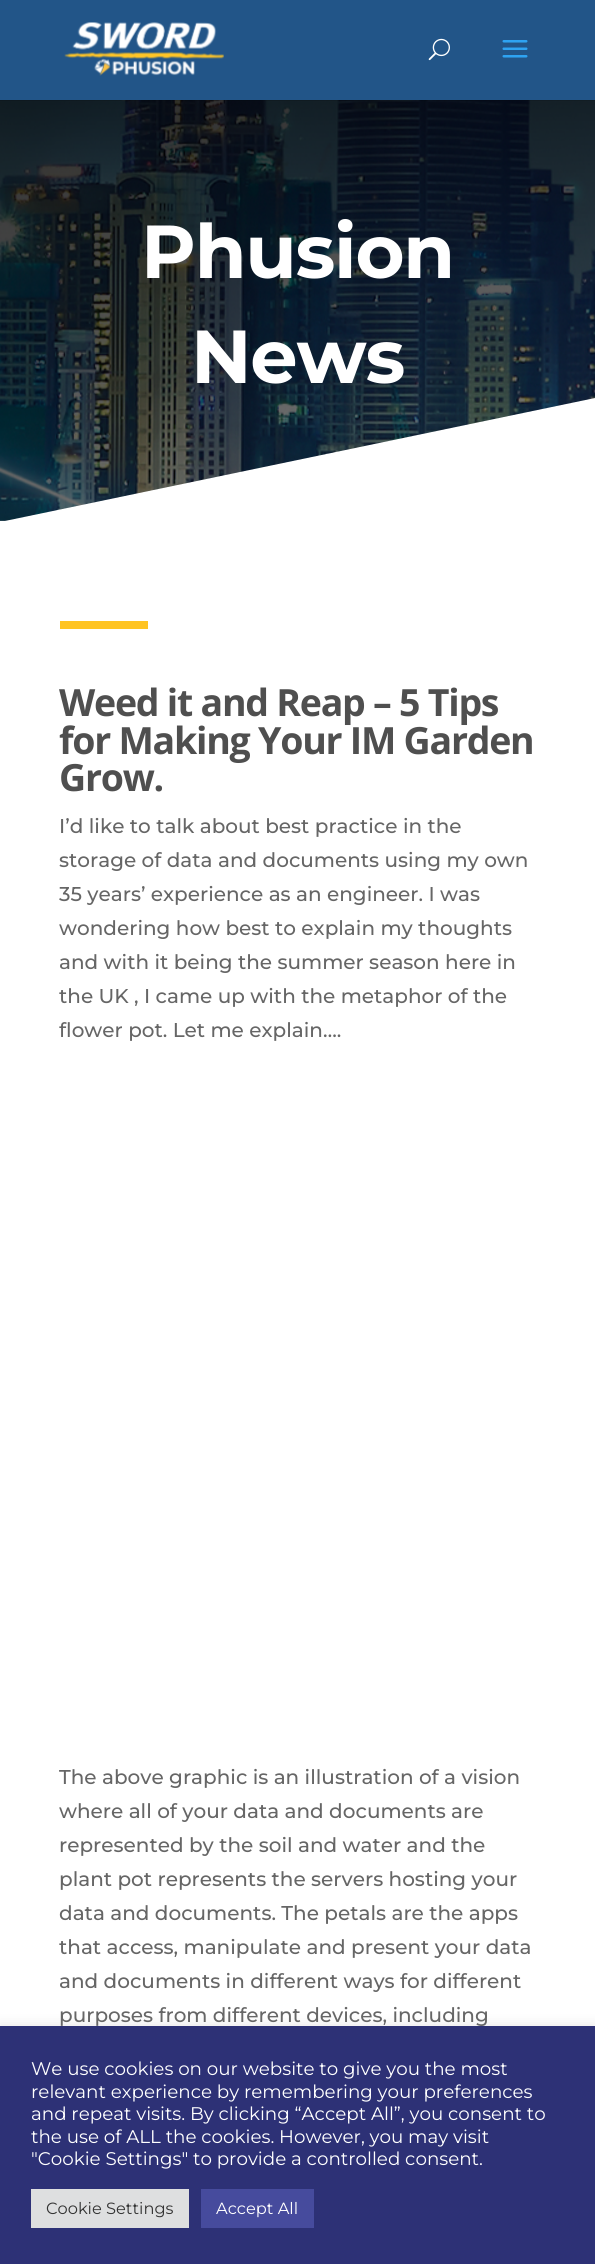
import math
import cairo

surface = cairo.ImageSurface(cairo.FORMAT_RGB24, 595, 2264)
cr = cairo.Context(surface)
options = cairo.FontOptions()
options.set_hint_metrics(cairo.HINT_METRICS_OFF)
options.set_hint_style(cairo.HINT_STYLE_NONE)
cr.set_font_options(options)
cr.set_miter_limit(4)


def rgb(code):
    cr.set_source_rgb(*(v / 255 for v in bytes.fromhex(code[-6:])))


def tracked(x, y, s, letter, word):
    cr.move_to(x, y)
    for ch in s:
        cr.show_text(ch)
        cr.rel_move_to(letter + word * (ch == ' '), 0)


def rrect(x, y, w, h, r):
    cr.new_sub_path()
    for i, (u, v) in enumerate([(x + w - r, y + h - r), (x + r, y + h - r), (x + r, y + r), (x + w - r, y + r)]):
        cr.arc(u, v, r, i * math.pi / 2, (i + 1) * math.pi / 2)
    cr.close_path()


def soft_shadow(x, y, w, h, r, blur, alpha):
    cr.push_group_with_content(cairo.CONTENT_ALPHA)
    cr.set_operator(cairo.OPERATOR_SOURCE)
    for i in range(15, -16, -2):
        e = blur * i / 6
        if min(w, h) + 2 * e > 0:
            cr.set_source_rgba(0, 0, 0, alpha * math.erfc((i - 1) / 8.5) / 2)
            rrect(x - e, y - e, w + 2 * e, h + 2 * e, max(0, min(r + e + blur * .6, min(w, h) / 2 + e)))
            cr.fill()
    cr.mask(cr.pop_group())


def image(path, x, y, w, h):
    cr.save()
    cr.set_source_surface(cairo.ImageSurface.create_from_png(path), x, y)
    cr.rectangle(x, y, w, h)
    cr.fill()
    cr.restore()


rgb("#ffffff")
cr.paint()
image("img/4.png", 0, 100, 595, 421)
cr.set_source_rgba(0, 0, 0, 0.1)
cr.rectangle(0, 100, 595, 1)
cr.fill()
rgb("#225588")
cr.rectangle(0, 0, 595, 100)
cr.fill()
image("img/1.png", 64, 22, 160, 54)
image("img/2.png", 428, 38, 22, 23)
image("img/3.png", 502, 40, 26, 18)
rgb("#ffffff")
cr.new_path()
cr.move_to(595, 398)
cr.line_to(595, 522)
cr.line_to(0, 522)
cr.close_path()
cr.fill()
rgb("#ffc423")
cr.rectangle(60, 621, 88, 8)
cr.fill()
rgb("#acabab")
soft_shadow(0, 2025, 595, 239, 0, 6, 0.3)
for x, y, w, h, color in [
    (0, 2026, 595, 238, "#2d3176"),
    (31, 2189, 158, 39, "#dedfe0"),
    (201, 2189, 113, 39, "#464b9d"),
]:
    rgb(color)
    cr.rectangle(x, y, w, h)
    cr.fill()
cr.select_font_face("Montserrat Thin")
cr.set_font_size(75)
rgb("#ffffff")
tracked(141, 278, "Phusion", -1.25, 0)
tracked(191, 383, "News", -1.25, 0)
cr.select_font_face("Open Sans", cairo.FONT_SLANT_NORMAL, cairo.FONT_WEIGHT_BOLD)
cr.set_font_size(37.5)
rgb("#4f4f4f")
for x, y, s in [
    (59, 716, "Weed it and Reap – 5 Tips"),
    (59, 754, "for Making Your IM Garden"),
    (59, 791, "Grow."),
]:
    tracked(x, y, s, -1.25, 0)
cr.select_font_face("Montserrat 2 Thin")
cr.set_font_size(20)
rgb("#666666")
for x, y, s in [
    (59, 833, "I’d like to talk about best practice in the"),
    (59, 867, "storage of data and documents using my own"),
    (59, 901, "35 years’ experience as an engineer. I was"),
    (59, 935, "wondering how best to explain my thoughts"),
    (59, 969, "and with it being the summer season here in"),
    (59, 1003, "the UK , I came up with the metaphor of the"),
    (59, 1037, "flower pot. Let me explain…."),
    (59, 1784, "The above graphic is an illustration of a vision"),
    (59, 1818, "where all of your data and documents are"),
    (59, 1852, "represented by the soil and water and the"),
    (59, 1886, "plant pot represents the servers hosting your"),
    (59, 1920, "data and documents. The petals are the apps"),
    (59, 1954, "that access, manipulate and present your data"),
    (59, 1988, "and documents in different ways for different"),
    (59, 2022, "purposes from different devices, including"),
]:
    cr.move_to(x, y)
    cr.show_text(s)
cr.select_font_face("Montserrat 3 Thin")
cr.set_font_size(18.3)
rgb("#ffffff")
for x, y, s in [
    (31, 2075, "We use cookies on our website to give you the most"),
    (31, 2098, "relevant experience by remembering your preferences"),
    (31, 2120, "and repeat visits. By clicking “Accept All”, you consent to"),
    (31, 2143, "the use of ALL the cookies. However, you may visit"),
    (31, 2165, "\"Cookie Settings\" to provide a controlled consent."),
]:
    cr.move_to(x, y)
    cr.show_text(s)
cr.set_font_size(16.25)
rgb("#333333")
cr.move_to(46, 2214)
cr.show_text("Cookie Settings")
rgb("#ffffff")
cr.move_to(216, 2214)
cr.show_text("Accept All")
surface.write_to_png("page.png")
